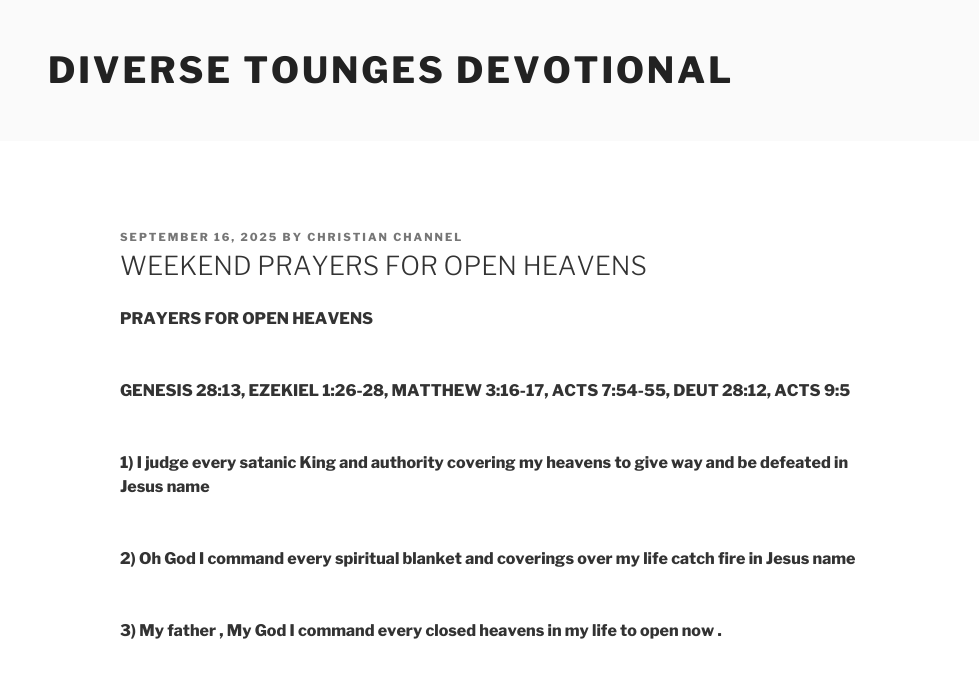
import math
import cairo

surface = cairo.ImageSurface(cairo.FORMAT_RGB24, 979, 695)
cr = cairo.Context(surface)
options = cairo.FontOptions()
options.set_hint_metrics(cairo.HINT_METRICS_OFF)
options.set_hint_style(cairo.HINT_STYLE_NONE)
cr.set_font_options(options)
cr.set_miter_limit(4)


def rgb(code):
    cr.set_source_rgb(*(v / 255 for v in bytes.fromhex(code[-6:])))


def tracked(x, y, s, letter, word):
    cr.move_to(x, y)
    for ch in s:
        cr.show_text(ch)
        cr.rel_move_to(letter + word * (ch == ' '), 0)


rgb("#ffffff")
cr.paint()
rgb("#fafafa")
cr.rectangle(0, 0, 979, 141)
cr.fill()
cr.select_font_face("Libre Franklin Thin")
cr.set_font_size(36)
rgb("#222222")
tracked(48, 83, "DIVERSE TOUNGES DEVOTIONAL", 2.9, 0)
cr.set_font_size(11)
rgb("#767676")
tracked(120, 241, "SEPTEMBER 16, 2025 BY CHRISTIAN CHANNEL", 2, 0)
cr.select_font_face("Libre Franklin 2 Thin")
cr.set_font_size(26)
rgb("#333333")
cr.move_to(120, 275)
cr.show_text("WEEKEND PRAYERS FOR OPEN HEAVENS")
cr.select_font_face("Libre Franklin Thin")
cr.set_font_size(16)
for x, y, s in [
    (120, 324, "PRAYERS FOR OPEN HEAVENS"),
    (120, 396, "GENESIS 28:13, EZEKIEL 1:26-28, MATTHEW 3:16-17, ACTS 7:54-55, DEUT 28:12, ACTS 9:5"),
    (120, 468, "1) I judge every satanic King and authority covering my heavens to give way and be defeated in"),
    (120, 492, "Jesus name"),
    (120, 564, "2) Oh God I command every spiritual blanket and coverings over my life catch fire in Jesus name"),
    (120, 636, "3) My father , My God I command every closed heavens in my life to open now ."),
]:
    cr.move_to(x, y)
    cr.show_text(s)
surface.write_to_png("page.png")
